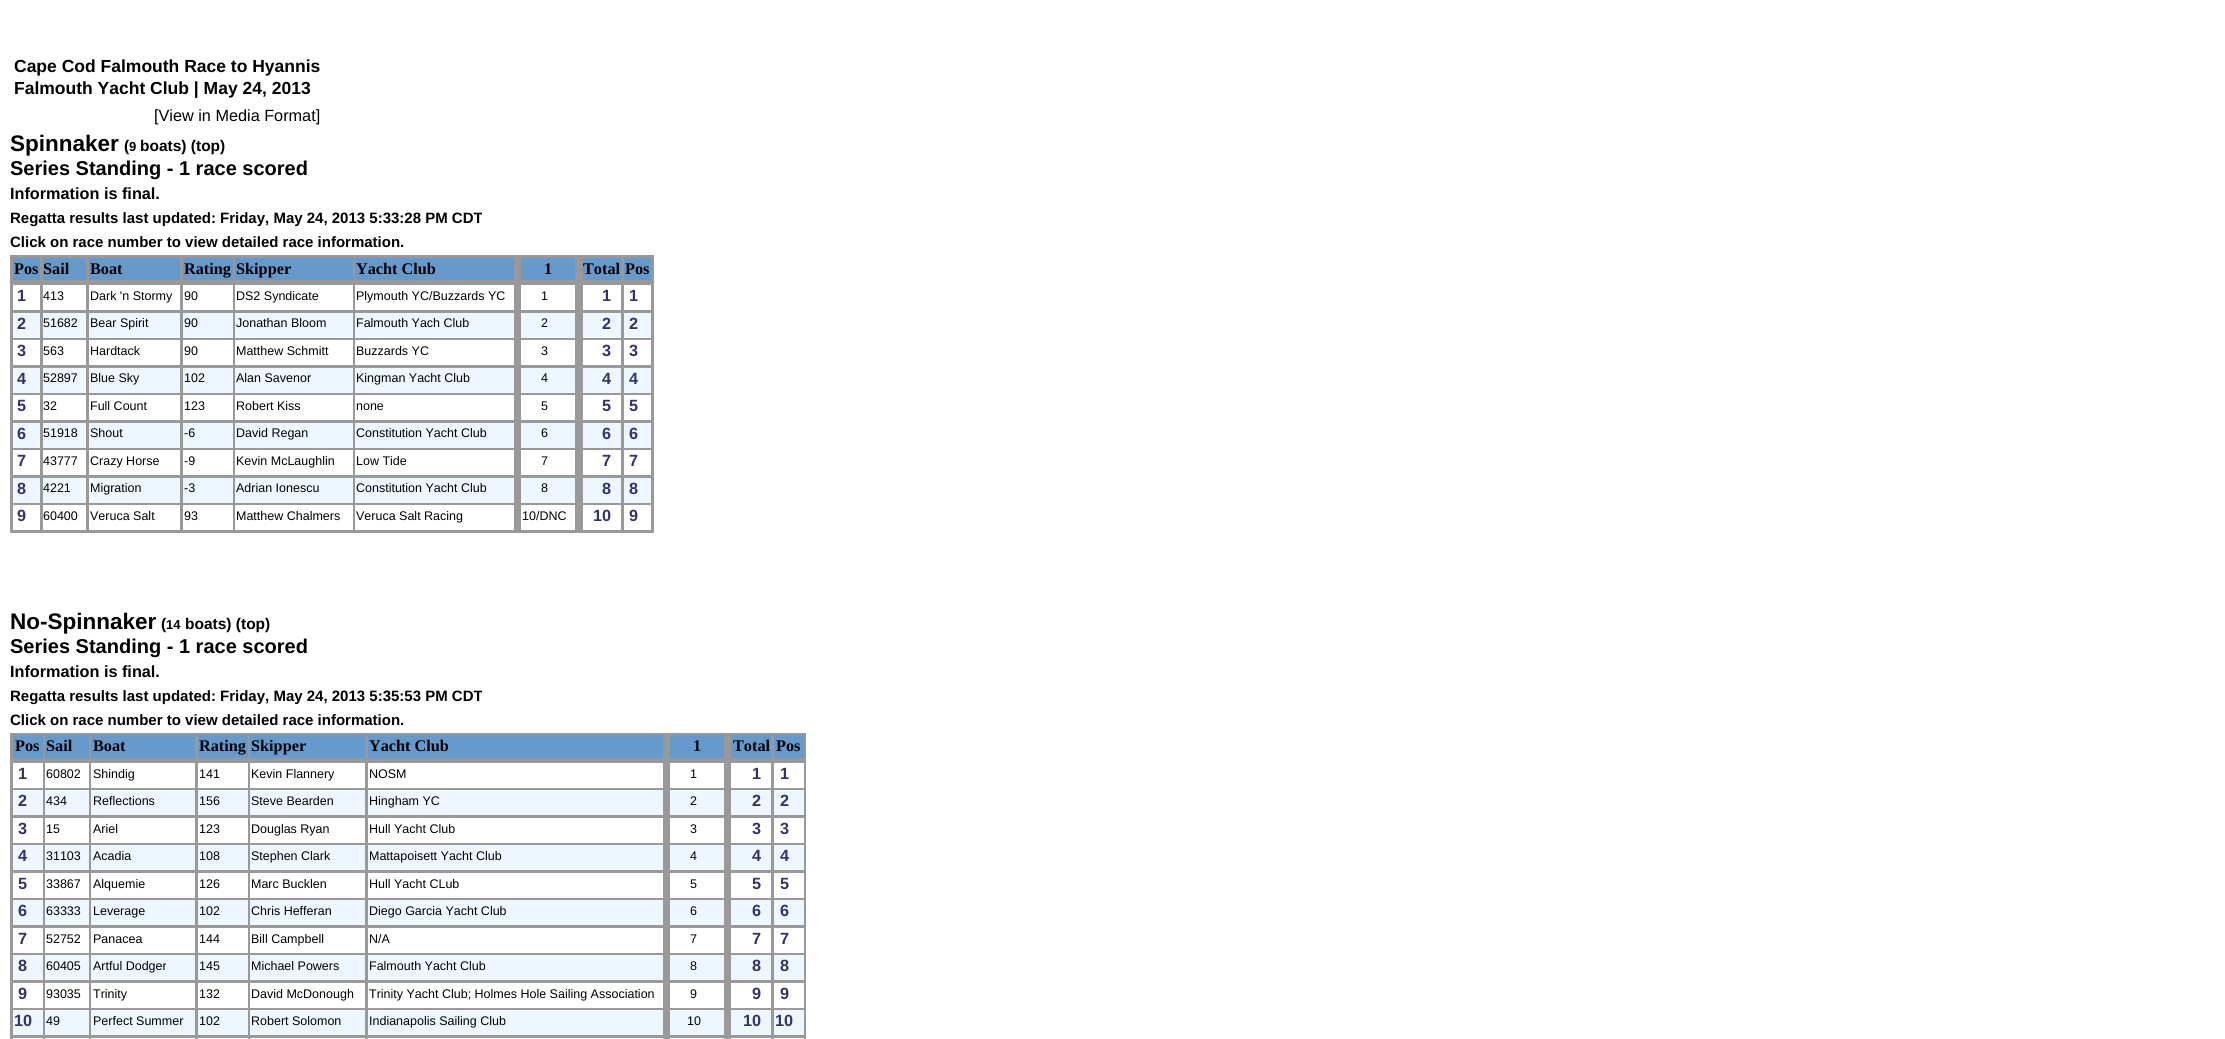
import math
import cairo

surface = cairo.ImageSurface(cairo.FORMAT_RGB24, 2225, 1039)
cr = cairo.Context(surface)
options = cairo.FontOptions()
options.set_hint_metrics(cairo.HINT_METRICS_OFF)
options.set_hint_style(cairo.HINT_STYLE_NONE)
cr.set_font_options(options)
cr.set_miter_limit(4)


def rgb(code):
    cr.set_source_rgb(*(v / 255 for v in bytes.fromhex(code[-6:])))


rgb("#ffffff")
cr.paint()
for x, y, w, h, color in [
    (10, 255, 644, 278, "#999999"),
    (13, 258, 27, 22, "#6699cc"),
    (43, 258, 43, 22, "#6699cc"),
    (89, 258, 91, 22, "#6699cc"),
    (183, 258, 50, 22, "#6699cc"),
    (235, 258, 118, 22, "#6699cc"),
    (355, 258, 159, 22, "#6699cc"),
    (521, 258, 54, 22, "#6699cc"),
    (583, 258, 38, 22, "#6699cc"),
    (624, 258, 27, 22, "#6699cc"),
    (13, 285, 27, 25, "#ffffff"),
    (43, 285, 43, 25, "#ffffff"),
    (89, 285, 91, 25, "#ffffff"),
    (183, 285, 50, 25, "#ffffff"),
    (235, 285, 118, 25, "#ffffff"),
    (355, 285, 159, 25, "#ffffff"),
    (521, 285, 54, 25, "#ffffff"),
    (583, 285, 38, 25, "#ffffff"),
    (624, 285, 27, 25, "#ffffff"),
    (13, 313, 27, 25, "#eef6ff"),
    (43, 313, 43, 25, "#eef6ff"),
    (89, 313, 91, 25, "#eef6ff"),
    (183, 313, 50, 25, "#eef6ff"),
    (235, 313, 118, 25, "#eef6ff"),
    (355, 313, 159, 25, "#eef6ff"),
    (521, 313, 54, 25, "#eef6ff"),
    (583, 313, 38, 25, "#eef6ff"),
    (624, 313, 27, 25, "#eef6ff"),
    (13, 340, 27, 25, "#ffffff"),
    (43, 340, 43, 25, "#ffffff"),
    (89, 340, 91, 25, "#ffffff"),
    (183, 340, 50, 25, "#ffffff"),
    (235, 340, 118, 25, "#ffffff"),
    (355, 340, 159, 25, "#ffffff"),
    (521, 340, 54, 25, "#ffffff"),
    (583, 340, 38, 25, "#ffffff"),
    (624, 340, 27, 25, "#ffffff"),
    (13, 368, 27, 25, "#eef6ff"),
    (43, 368, 43, 25, "#eef6ff"),
    (89, 368, 91, 25, "#eef6ff"),
    (183, 368, 50, 25, "#eef6ff"),
    (235, 368, 118, 25, "#eef6ff"),
    (355, 368, 159, 25, "#eef6ff"),
    (521, 368, 54, 25, "#eef6ff"),
    (583, 368, 38, 25, "#eef6ff"),
    (624, 368, 27, 25, "#eef6ff"),
    (13, 395, 27, 25, "#ffffff"),
    (43, 395, 43, 25, "#ffffff"),
    (89, 395, 91, 25, "#ffffff"),
    (183, 395, 50, 25, "#ffffff"),
    (235, 395, 118, 25, "#ffffff"),
    (355, 395, 159, 25, "#ffffff"),
    (521, 395, 54, 25, "#ffffff"),
    (583, 395, 38, 25, "#ffffff"),
    (624, 395, 27, 25, "#ffffff"),
    (13, 423, 27, 25, "#eef6ff"),
    (43, 423, 43, 25, "#eef6ff"),
    (89, 423, 91, 25, "#eef6ff"),
    (183, 423, 50, 25, "#eef6ff"),
    (235, 423, 118, 25, "#eef6ff"),
    (355, 423, 159, 25, "#eef6ff"),
    (521, 423, 54, 25, "#eef6ff"),
    (583, 423, 38, 25, "#eef6ff"),
    (624, 423, 27, 25, "#eef6ff"),
    (13, 450, 27, 25, "#ffffff"),
    (43, 450, 43, 25, "#ffffff"),
    (89, 450, 91, 25, "#ffffff"),
    (183, 450, 50, 25, "#ffffff"),
    (235, 450, 118, 25, "#ffffff"),
    (355, 450, 159, 25, "#ffffff"),
    (521, 450, 54, 25, "#ffffff"),
    (583, 450, 38, 25, "#ffffff"),
    (624, 450, 27, 25, "#ffffff"),
    (13, 478, 27, 25, "#eef6ff"),
    (43, 478, 43, 25, "#eef6ff"),
    (89, 478, 91, 25, "#eef6ff"),
    (183, 478, 50, 25, "#eef6ff"),
    (235, 478, 118, 25, "#eef6ff"),
    (355, 478, 159, 25, "#eef6ff"),
    (521, 478, 54, 25, "#eef6ff"),
    (583, 478, 38, 25, "#eef6ff"),
    (624, 478, 27, 25, "#eef6ff"),
    (13, 505, 27, 25, "#ffffff"),
    (43, 505, 43, 25, "#ffffff"),
    (89, 505, 91, 25, "#ffffff"),
    (183, 505, 50, 25, "#ffffff"),
    (235, 505, 118, 25, "#ffffff"),
    (355, 505, 159, 25, "#ffffff"),
    (521, 505, 54, 25, "#ffffff"),
    (583, 505, 38, 25, "#ffffff"),
    (624, 505, 27, 25, "#ffffff"),
    (10, 733, 796, 306, "#999999"),
    (13, 735, 30, 23, "#6699cc"),
    (45, 735, 44, 23, "#6699cc"),
    (91, 735, 104, 23, "#6699cc"),
    (198, 735, 50, 23, "#6699cc"),
    (250, 735, 115, 23, "#6699cc"),
    (368, 735, 295, 23, "#6699cc"),
    (670, 735, 54, 23, "#6699cc"),
    (731, 735, 40, 23, "#6699cc"),
    (774, 735, 30, 23, "#6699cc"),
    (13, 763, 30, 25, "#ffffff"),
    (45, 763, 44, 25, "#ffffff"),
    (91, 763, 104, 25, "#ffffff"),
    (198, 763, 50, 25, "#ffffff"),
    (250, 763, 115, 25, "#ffffff"),
    (368, 763, 295, 25, "#ffffff"),
    (670, 763, 54, 25, "#ffffff"),
    (731, 763, 40, 25, "#ffffff"),
    (774, 763, 30, 25, "#ffffff"),
    (13, 790, 30, 25, "#eef6ff"),
    (45, 790, 44, 25, "#eef6ff"),
    (91, 790, 104, 25, "#eef6ff"),
    (198, 790, 50, 25, "#eef6ff"),
    (250, 790, 115, 25, "#eef6ff"),
    (368, 790, 295, 25, "#eef6ff"),
    (670, 790, 54, 25, "#eef6ff"),
    (731, 790, 40, 25, "#eef6ff"),
    (774, 790, 30, 25, "#eef6ff"),
    (13, 818, 30, 25, "#ffffff"),
    (45, 818, 44, 25, "#ffffff"),
    (91, 818, 104, 25, "#ffffff"),
    (198, 818, 50, 25, "#ffffff"),
    (250, 818, 115, 25, "#ffffff"),
    (368, 818, 295, 25, "#ffffff"),
    (670, 818, 54, 25, "#ffffff"),
    (731, 818, 40, 25, "#ffffff"),
    (774, 818, 30, 25, "#ffffff"),
    (13, 845, 30, 25, "#eef6ff"),
    (45, 845, 44, 25, "#eef6ff"),
    (91, 845, 104, 25, "#eef6ff"),
    (198, 845, 50, 25, "#eef6ff"),
    (250, 845, 115, 25, "#eef6ff"),
    (368, 845, 295, 25, "#eef6ff"),
    (670, 845, 54, 25, "#eef6ff"),
    (731, 845, 40, 25, "#eef6ff"),
    (774, 845, 30, 25, "#eef6ff"),
    (13, 873, 30, 25, "#ffffff"),
    (45, 873, 44, 25, "#ffffff"),
    (91, 873, 104, 25, "#ffffff"),
    (198, 873, 50, 25, "#ffffff"),
    (250, 873, 115, 25, "#ffffff"),
    (368, 873, 295, 25, "#ffffff"),
    (670, 873, 54, 25, "#ffffff"),
    (731, 873, 40, 25, "#ffffff"),
    (774, 873, 30, 25, "#ffffff"),
    (13, 900, 30, 25, "#eef6ff"),
    (45, 900, 44, 25, "#eef6ff"),
    (91, 900, 104, 25, "#eef6ff"),
    (198, 900, 50, 25, "#eef6ff"),
    (250, 900, 115, 25, "#eef6ff"),
    (368, 900, 295, 25, "#eef6ff"),
    (670, 900, 54, 25, "#eef6ff"),
    (731, 900, 40, 25, "#eef6ff"),
    (774, 900, 30, 25, "#eef6ff"),
    (13, 928, 30, 25, "#ffffff"),
    (45, 928, 44, 25, "#ffffff"),
    (91, 928, 104, 25, "#ffffff"),
    (198, 928, 50, 25, "#ffffff"),
    (250, 928, 115, 25, "#ffffff"),
    (368, 928, 295, 25, "#ffffff"),
    (670, 928, 54, 25, "#ffffff"),
    (731, 928, 40, 25, "#ffffff"),
    (774, 928, 30, 25, "#ffffff"),
    (13, 955, 30, 25, "#eef6ff"),
    (45, 955, 44, 25, "#eef6ff"),
    (91, 955, 104, 25, "#eef6ff"),
    (198, 955, 50, 25, "#eef6ff"),
    (250, 955, 115, 25, "#eef6ff"),
    (368, 955, 295, 25, "#eef6ff"),
    (670, 955, 54, 25, "#eef6ff"),
    (731, 955, 40, 25, "#eef6ff"),
    (774, 955, 30, 25, "#eef6ff"),
    (13, 983, 30, 25, "#ffffff"),
    (45, 983, 44, 25, "#ffffff"),
    (91, 983, 104, 25, "#ffffff"),
    (198, 983, 50, 25, "#ffffff"),
    (250, 983, 115, 25, "#ffffff"),
    (368, 983, 295, 25, "#ffffff"),
    (670, 983, 54, 25, "#ffffff"),
    (731, 983, 40, 25, "#ffffff"),
    (774, 983, 30, 25, "#ffffff"),
    (13, 1010, 30, 25, "#eef6ff"),
    (45, 1010, 44, 25, "#eef6ff"),
    (91, 1010, 104, 25, "#eef6ff"),
    (198, 1010, 50, 25, "#eef6ff"),
    (250, 1010, 115, 25, "#eef6ff"),
    (368, 1010, 295, 25, "#eef6ff"),
    (670, 1010, 54, 25, "#eef6ff"),
    (731, 1010, 40, 25, "#eef6ff"),
    (774, 1010, 30, 25, "#eef6ff"),
    (13, 1038, 30, 1, "#ffffff"),
    (45, 1038, 44, 1, "#ffffff"),
    (91, 1038, 104, 1, "#ffffff"),
    (198, 1038, 50, 1, "#ffffff"),
    (250, 1038, 115, 1, "#ffffff"),
    (368, 1038, 295, 1, "#ffffff"),
    (670, 1038, 54, 1, "#ffffff"),
    (731, 1038, 40, 1, "#ffffff"),
    (774, 1038, 30, 1, "#ffffff"),
]:
    rgb(color)
    cr.rectangle(x, y, w, h)
    cr.fill()
cr.select_font_face("Liberation Sans", cairo.FONT_SLANT_NORMAL, cairo.FONT_WEIGHT_BOLD)
cr.set_font_size(17.5)
rgb("#000000")
cr.move_to(14, 72)
cr.show_text("Cape Cod Falmouth Race to Hyannis")
cr.move_to(14, 94)
cr.show_text("Falmouth Yacht Club | May 24, 2013")
cr.select_font_face("Liberation Sans")
cr.set_font_size(16.25)
cr.move_to(154, 121)
cr.show_text("[View in Media Format]")
cr.select_font_face("Liberation Sans", cairo.FONT_SLANT_NORMAL, cairo.FONT_WEIGHT_BOLD)
cr.set_font_size(22.5)
cr.move_to(10, 151)
cr.show_text("Spinnaker")
cr.set_font_size(15.5)
cr.move_to(124, 151)
cr.show_text("(")
cr.set_font_size(13)
cr.move_to(129, 151)
cr.show_text("9")
cr.set_font_size(15.5)
cr.move_to(140, 151)
cr.show_text("boats) (top)")
cr.set_font_size(20)
cr.move_to(10, 175)
cr.show_text("Series Standing - 1 race scored")
cr.set_font_size(16.25)
cr.move_to(10, 199)
cr.show_text("Information is final.")
cr.set_font_size(15)
cr.move_to(10, 223)
cr.show_text("Regatta results last updated: Friday, May 24, 2013 5:33:28 PM CDT")
cr.move_to(10, 247)
cr.show_text("Click on race number to view detailed race information.")
cr.select_font_face("Liberation Serif", cairo.FONT_SLANT_NORMAL, cairo.FONT_WEIGHT_BOLD)
cr.set_font_size(16.25)
for x, y, s in [
    (14, 274, "Pos"),
    (43, 274, "Sail"),
    (90, 274, "Boat"),
    (184, 274, "Rating"),
    (236, 274, "Skipper"),
    (356, 274, "Yacht Club"),
    (544, 274, "1"),
    (583, 274, "Total"),
    (625, 274, "Pos"),
]:
    cr.move_to(x, y)
    cr.show_text(s)
cr.select_font_face("Liberation Sans", cairo.FONT_SLANT_NORMAL, cairo.FONT_WEIGHT_BOLD)
rgb("#333366")
cr.move_to(17, 301)
cr.show_text("1")
cr.select_font_face("Liberation Sans")
cr.set_font_size(12.5)
rgb("#000000")
for x, y, s in [
    (43, 300, "413"),
    (90, 300, "Dark 'n Stormy"),
    (184, 300, "90"),
    (236, 300, "DS2 Syndicate"),
    (356, 300, "Plymouth YC/Buzzards YC"),
    (541, 300, "1"),
]:
    cr.move_to(x, y)
    cr.show_text(s)
cr.select_font_face("Liberation Sans", cairo.FONT_SLANT_NORMAL, cairo.FONT_WEIGHT_BOLD)
cr.set_font_size(16.25)
rgb("#333366")
for x, y, s in [
    (602, 301, "1"),
    (629, 301, "1"),
    (17, 329, "2"),
]:
    cr.move_to(x, y)
    cr.show_text(s)
cr.select_font_face("Liberation Sans")
cr.set_font_size(12.5)
rgb("#000000")
for x, y, s in [
    (43, 327, "51682"),
    (90, 327, "Bear Spirit"),
    (184, 327, "90"),
    (236, 327, "Jonathan Bloom"),
    (356, 327, "Falmouth Yach Club"),
    (541, 327, "2"),
]:
    cr.move_to(x, y)
    cr.show_text(s)
cr.select_font_face("Liberation Sans", cairo.FONT_SLANT_NORMAL, cairo.FONT_WEIGHT_BOLD)
cr.set_font_size(16.25)
rgb("#333366")
for x, y, s in [
    (602, 329, "2"),
    (629, 329, "2"),
    (17, 356, "3"),
]:
    cr.move_to(x, y)
    cr.show_text(s)
cr.select_font_face("Liberation Sans")
cr.set_font_size(12.5)
rgb("#000000")
for x, y, s in [
    (43, 355, "563"),
    (90, 355, "Hardtack"),
    (184, 355, "90"),
    (236, 355, "Matthew Schmitt"),
    (356, 355, "Buzzards YC"),
    (541, 355, "3"),
]:
    cr.move_to(x, y)
    cr.show_text(s)
cr.select_font_face("Liberation Sans", cairo.FONT_SLANT_NORMAL, cairo.FONT_WEIGHT_BOLD)
cr.set_font_size(16.25)
rgb("#333366")
for x, y, s in [
    (602, 356, "3"),
    (629, 356, "3"),
    (17, 384, "4"),
]:
    cr.move_to(x, y)
    cr.show_text(s)
cr.select_font_face("Liberation Sans")
cr.set_font_size(12.5)
rgb("#000000")
for x, y, s in [
    (43, 382, "52897"),
    (90, 382, "Blue Sky"),
    (184, 382, "102"),
    (236, 382, "Alan Savenor"),
    (356, 382, "Kingman Yacht Club"),
    (541, 382, "4"),
]:
    cr.move_to(x, y)
    cr.show_text(s)
cr.select_font_face("Liberation Sans", cairo.FONT_SLANT_NORMAL, cairo.FONT_WEIGHT_BOLD)
cr.set_font_size(16.25)
rgb("#333366")
for x, y, s in [
    (602, 384, "4"),
    (629, 384, "4"),
    (17, 411, "5"),
]:
    cr.move_to(x, y)
    cr.show_text(s)
cr.select_font_face("Liberation Sans")
cr.set_font_size(12.5)
rgb("#000000")
for x, y, s in [
    (43, 410, "32"),
    (90, 410, "Full Count"),
    (184, 410, "123"),
    (236, 410, "Robert Kiss"),
    (356, 410, "none"),
    (541, 410, "5"),
]:
    cr.move_to(x, y)
    cr.show_text(s)
cr.select_font_face("Liberation Sans", cairo.FONT_SLANT_NORMAL, cairo.FONT_WEIGHT_BOLD)
cr.set_font_size(16.25)
rgb("#333366")
for x, y, s in [
    (602, 411, "5"),
    (629, 411, "5"),
    (17, 439, "6"),
]:
    cr.move_to(x, y)
    cr.show_text(s)
cr.select_font_face("Liberation Sans")
cr.set_font_size(12.5)
rgb("#000000")
for x, y, s in [
    (43, 437, "51918"),
    (90, 437, "Shout"),
    (184, 437, "-6"),
    (236, 437, "David Regan"),
    (356, 437, "Constitution Yacht Club"),
    (541, 437, "6"),
]:
    cr.move_to(x, y)
    cr.show_text(s)
cr.select_font_face("Liberation Sans", cairo.FONT_SLANT_NORMAL, cairo.FONT_WEIGHT_BOLD)
cr.set_font_size(16.25)
rgb("#333366")
for x, y, s in [
    (602, 439, "6"),
    (629, 439, "6"),
    (17, 466, "7"),
]:
    cr.move_to(x, y)
    cr.show_text(s)
cr.select_font_face("Liberation Sans")
cr.set_font_size(12.5)
rgb("#000000")
for x, y, s in [
    (43, 465, "43777"),
    (90, 465, "Crazy Horse"),
    (184, 465, "-9"),
    (236, 465, "Kevin McLaughlin"),
    (356, 465, "Low Tide"),
    (541, 465, "7"),
]:
    cr.move_to(x, y)
    cr.show_text(s)
cr.select_font_face("Liberation Sans", cairo.FONT_SLANT_NORMAL, cairo.FONT_WEIGHT_BOLD)
cr.set_font_size(16.25)
rgb("#333366")
for x, y, s in [
    (602, 466, "7"),
    (629, 466, "7"),
    (17, 494, "8"),
]:
    cr.move_to(x, y)
    cr.show_text(s)
cr.select_font_face("Liberation Sans")
cr.set_font_size(12.5)
rgb("#000000")
for x, y, s in [
    (43, 492, "4221"),
    (90, 492, "Migration"),
    (184, 492, "-3"),
    (236, 492, "Adrian Ionescu"),
    (356, 492, "Constitution Yacht Club"),
    (541, 492, "8"),
]:
    cr.move_to(x, y)
    cr.show_text(s)
cr.select_font_face("Liberation Sans", cairo.FONT_SLANT_NORMAL, cairo.FONT_WEIGHT_BOLD)
cr.set_font_size(16.25)
rgb("#333366")
for x, y, s in [
    (602, 494, "8"),
    (629, 494, "8"),
    (17, 521, "9"),
]:
    cr.move_to(x, y)
    cr.show_text(s)
cr.select_font_face("Liberation Sans")
cr.set_font_size(12.5)
rgb("#000000")
for x, y, s in [
    (43, 520, "60400"),
    (90, 520, "Veruca Salt"),
    (184, 520, "93"),
    (236, 520, "Matthew Chalmers"),
    (356, 520, "Veruca Salt Racing"),
    (522, 520, "10/DNC"),
]:
    cr.move_to(x, y)
    cr.show_text(s)
cr.select_font_face("Liberation Sans", cairo.FONT_SLANT_NORMAL, cairo.FONT_WEIGHT_BOLD)
cr.set_font_size(16.25)
rgb("#333366")
cr.move_to(593, 521)
cr.show_text("10")
cr.move_to(629, 521)
cr.show_text("9")
cr.set_font_size(22.5)
rgb("#000000")
cr.move_to(10, 629)
cr.show_text("No-Spinnaker")
cr.set_font_size(15.5)
cr.move_to(161, 629)
cr.show_text("(")
cr.set_font_size(13)
cr.move_to(166, 629)
cr.show_text("14")
cr.set_font_size(15.5)
cr.move_to(185, 629)
cr.show_text("boats) (top)")
cr.set_font_size(20)
cr.move_to(10, 653)
cr.show_text("Series Standing - 1 race scored")
cr.set_font_size(16.25)
cr.move_to(10, 677)
cr.show_text("Information is final.")
cr.set_font_size(15)
cr.move_to(10, 701)
cr.show_text("Regatta results last updated: Friday, May 24, 2013 5:35:53 PM CDT")
cr.move_to(10, 725)
cr.show_text("Click on race number to view detailed race information.")
cr.select_font_face("Liberation Serif", cairo.FONT_SLANT_NORMAL, cairo.FONT_WEIGHT_BOLD)
cr.set_font_size(16.25)
for x, y, s in [
    (15, 751, "Pos"),
    (46, 751, "Sail"),
    (93, 751, "Boat"),
    (199, 751, "Rating"),
    (251, 751, "Skipper"),
    (369, 751, "Yacht Club"),
    (693, 751, "1"),
    (733, 751, "Total"),
    (776, 751, "Pos"),
]:
    cr.move_to(x, y)
    cr.show_text(s)
cr.select_font_face("Liberation Sans", cairo.FONT_SLANT_NORMAL, cairo.FONT_WEIGHT_BOLD)
rgb("#333366")
cr.move_to(18, 779)
cr.show_text("1")
cr.select_font_face("Liberation Sans")
cr.set_font_size(12.5)
rgb("#000000")
for x, y, s in [
    (46, 778, "60802"),
    (93, 778, "Shindig"),
    (199, 778, "141"),
    (251, 778, "Kevin Flannery"),
    (369, 778, "NOSM"),
    (690, 778, "1"),
]:
    cr.move_to(x, y)
    cr.show_text(s)
cr.select_font_face("Liberation Sans", cairo.FONT_SLANT_NORMAL, cairo.FONT_WEIGHT_BOLD)
cr.set_font_size(16.25)
rgb("#333366")
for x, y, s in [
    (752, 779, "1"),
    (780, 779, "1"),
    (18, 806, "2"),
]:
    cr.move_to(x, y)
    cr.show_text(s)
cr.select_font_face("Liberation Sans")
cr.set_font_size(12.5)
rgb("#000000")
for x, y, s in [
    (46, 805, "434"),
    (93, 805, "Reflections"),
    (199, 805, "156"),
    (251, 805, "Steve Bearden"),
    (369, 805, "Hingham YC"),
    (690, 805, "2"),
]:
    cr.move_to(x, y)
    cr.show_text(s)
cr.select_font_face("Liberation Sans", cairo.FONT_SLANT_NORMAL, cairo.FONT_WEIGHT_BOLD)
cr.set_font_size(16.25)
rgb("#333366")
for x, y, s in [
    (752, 806, "2"),
    (780, 806, "2"),
    (18, 834, "3"),
]:
    cr.move_to(x, y)
    cr.show_text(s)
cr.select_font_face("Liberation Sans")
cr.set_font_size(12.5)
rgb("#000000")
for x, y, s in [
    (46, 833, "15"),
    (93, 833, "Ariel"),
    (199, 833, "123"),
    (251, 833, "Douglas Ryan"),
    (369, 833, "Hull Yacht Club"),
    (690, 833, "3"),
]:
    cr.move_to(x, y)
    cr.show_text(s)
cr.select_font_face("Liberation Sans", cairo.FONT_SLANT_NORMAL, cairo.FONT_WEIGHT_BOLD)
cr.set_font_size(16.25)
rgb("#333366")
for x, y, s in [
    (752, 834, "3"),
    (780, 834, "3"),
    (18, 861, "4"),
]:
    cr.move_to(x, y)
    cr.show_text(s)
cr.select_font_face("Liberation Sans")
cr.set_font_size(12.5)
rgb("#000000")
for x, y, s in [
    (46, 860, "31103"),
    (93, 860, "Acadia"),
    (199, 860, "108"),
    (251, 860, "Stephen Clark"),
    (369, 860, "Mattapoisett Yacht Club"),
    (690, 860, "4"),
]:
    cr.move_to(x, y)
    cr.show_text(s)
cr.select_font_face("Liberation Sans", cairo.FONT_SLANT_NORMAL, cairo.FONT_WEIGHT_BOLD)
cr.set_font_size(16.25)
rgb("#333366")
for x, y, s in [
    (752, 861, "4"),
    (780, 861, "4"),
    (18, 889, "5"),
]:
    cr.move_to(x, y)
    cr.show_text(s)
cr.select_font_face("Liberation Sans")
cr.set_font_size(12.5)
rgb("#000000")
for x, y, s in [
    (46, 888, "33867"),
    (93, 888, "Alquemie"),
    (199, 888, "126"),
    (251, 888, "Marc Bucklen"),
    (369, 888, "Hull Yacht CLub"),
    (690, 888, "5"),
]:
    cr.move_to(x, y)
    cr.show_text(s)
cr.select_font_face("Liberation Sans", cairo.FONT_SLANT_NORMAL, cairo.FONT_WEIGHT_BOLD)
cr.set_font_size(16.25)
rgb("#333366")
for x, y, s in [
    (752, 889, "5"),
    (780, 889, "5"),
    (18, 916, "6"),
]:
    cr.move_to(x, y)
    cr.show_text(s)
cr.select_font_face("Liberation Sans")
cr.set_font_size(12.5)
rgb("#000000")
for x, y, s in [
    (46, 915, "63333"),
    (93, 915, "Leverage"),
    (199, 915, "102"),
    (251, 915, "Chris Hefferan"),
    (369, 915, "Diego Garcia Yacht Club"),
    (690, 915, "6"),
]:
    cr.move_to(x, y)
    cr.show_text(s)
cr.select_font_face("Liberation Sans", cairo.FONT_SLANT_NORMAL, cairo.FONT_WEIGHT_BOLD)
cr.set_font_size(16.25)
rgb("#333366")
for x, y, s in [
    (752, 916, "6"),
    (780, 916, "6"),
    (18, 944, "7"),
]:
    cr.move_to(x, y)
    cr.show_text(s)
cr.select_font_face("Liberation Sans")
cr.set_font_size(12.5)
rgb("#000000")
for x, y, s in [
    (46, 943, "52752"),
    (93, 943, "Panacea"),
    (199, 943, "144"),
    (251, 943, "Bill Campbell"),
    (369, 943, "N/A"),
    (690, 943, "7"),
]:
    cr.move_to(x, y)
    cr.show_text(s)
cr.select_font_face("Liberation Sans", cairo.FONT_SLANT_NORMAL, cairo.FONT_WEIGHT_BOLD)
cr.set_font_size(16.25)
rgb("#333366")
for x, y, s in [
    (752, 944, "7"),
    (780, 944, "7"),
    (18, 971, "8"),
]:
    cr.move_to(x, y)
    cr.show_text(s)
cr.select_font_face("Liberation Sans")
cr.set_font_size(12.5)
rgb("#000000")
for x, y, s in [
    (46, 970, "60405"),
    (93, 970, "Artful Dodger"),
    (199, 970, "145"),
    (251, 970, "Michael Powers"),
    (369, 970, "Falmouth Yacht Club"),
    (690, 970, "8"),
]:
    cr.move_to(x, y)
    cr.show_text(s)
cr.select_font_face("Liberation Sans", cairo.FONT_SLANT_NORMAL, cairo.FONT_WEIGHT_BOLD)
cr.set_font_size(16.25)
rgb("#333366")
for x, y, s in [
    (752, 971, "8"),
    (780, 971, "8"),
    (18, 999, "9"),
]:
    cr.move_to(x, y)
    cr.show_text(s)
cr.select_font_face("Liberation Sans")
cr.set_font_size(12.5)
rgb("#000000")
for x, y, s in [
    (46, 998, "93035"),
    (93, 998, "Trinity"),
    (199, 998, "132"),
    (251, 998, "David McDonough"),
    (369, 998, "Trinity Yacht Club; Holmes Hole Sailing Association"),
    (690, 998, "9"),
]:
    cr.move_to(x, y)
    cr.show_text(s)
cr.select_font_face("Liberation Sans", cairo.FONT_SLANT_NORMAL, cairo.FONT_WEIGHT_BOLD)
cr.set_font_size(16.25)
rgb("#333366")
for x, y, s in [
    (752, 999, "9"),
    (780, 999, "9"),
    (14, 1026, "10"),
]:
    cr.move_to(x, y)
    cr.show_text(s)
cr.select_font_face("Liberation Sans")
cr.set_font_size(12.5)
rgb("#000000")
for x, y, s in [
    (46, 1025, "49"),
    (93, 1025, "Perfect Summer"),
    (199, 1025, "102"),
    (251, 1025, "Robert Solomon"),
    (369, 1025, "Indianapolis Sailing Club"),
    (687, 1025, "10"),
]:
    cr.move_to(x, y)
    cr.show_text(s)
cr.select_font_face("Liberation Sans", cairo.FONT_SLANT_NORMAL, cairo.FONT_WEIGHT_BOLD)
cr.set_font_size(16.25)
rgb("#333366")
cr.move_to(743, 1026)
cr.show_text("10")
cr.move_to(775, 1026)
cr.show_text("10")
surface.write_to_png("page.png")
